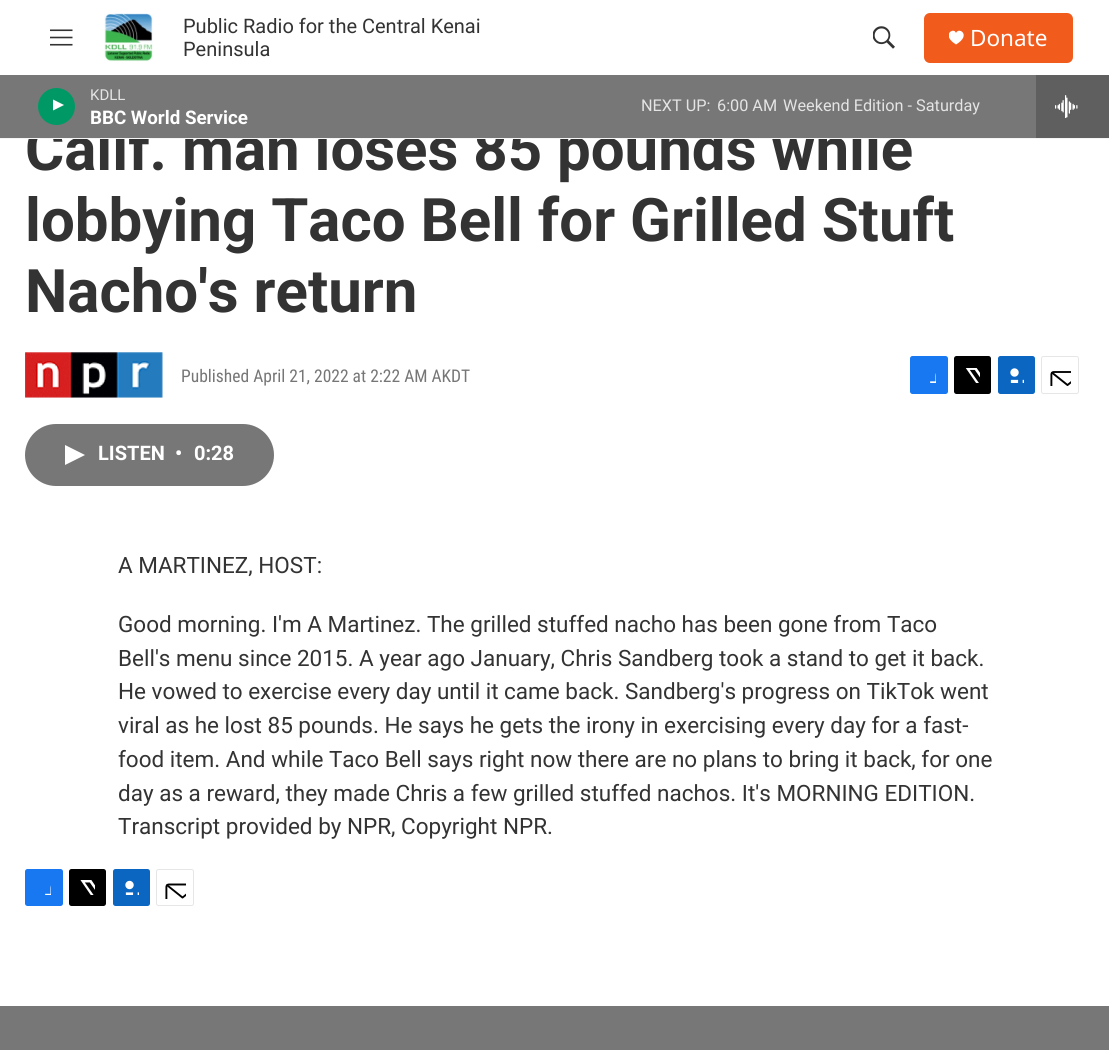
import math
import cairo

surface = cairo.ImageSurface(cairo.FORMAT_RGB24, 1109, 1050)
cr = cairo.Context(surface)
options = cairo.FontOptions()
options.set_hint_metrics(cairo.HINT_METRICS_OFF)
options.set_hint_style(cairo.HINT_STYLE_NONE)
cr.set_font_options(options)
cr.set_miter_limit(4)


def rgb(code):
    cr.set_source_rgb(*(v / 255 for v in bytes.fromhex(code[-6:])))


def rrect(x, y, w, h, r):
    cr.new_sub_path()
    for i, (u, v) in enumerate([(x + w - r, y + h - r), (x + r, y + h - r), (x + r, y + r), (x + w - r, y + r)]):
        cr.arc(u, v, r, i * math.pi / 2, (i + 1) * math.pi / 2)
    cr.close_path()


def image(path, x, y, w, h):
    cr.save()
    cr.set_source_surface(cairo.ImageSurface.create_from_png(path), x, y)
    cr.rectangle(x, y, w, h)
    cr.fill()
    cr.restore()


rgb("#ffffff")
cr.paint()
image("img/1.png", 50, 29, 23, 17)
image("img/2.png", 104, 13, 50, 49)
image("img/3.png", 873, 26, 22, 23)
rgb("#f15b1c")
rrect(924, 13, 149, 50, 6)
cr.fill()
cr.save()
cr.rectangle(949, 30, 15, 15)
cr.clip()
rgb("#ffffff")
cr.new_path()
cr.move_to(956, 33)
cr.curve_to(954, 26.5, 940.5, 35, 956, 44.5)
cr.curve_to(972, 35, 958.5, 26.5, 956, 33)
cr.close_path()
cr.fill()
cr.restore()
rgb("#5f5f5f")
cr.rectangle(1036, 75, 73, 63)
cr.fill()
image("img/4.png", 1055, 95, 23, 23)
image("img/5.png", 25, 352, 138, 47)
rgb("#1778f2")
rrect(910, 356, 38, 38, 2.5)
cr.fill()
image("img/6.png", 930, 373, 6, 10)
rgb("#000000")
rrect(954, 356, 37, 38, 2.5)
cr.fill()
image("img/7.png", 965, 368, 15, 15)
rgb("#0a66c1")
rrect(998, 356, 37, 38, 2.5)
cr.fill()
image("img/8.png", 1010, 368, 14, 15)
rrect(1041.5, 356.5, 37, 37, 2)
rgb("#e6e6e6")
cr.set_line_width(1)
cr.stroke()
image("img/9.png", 1050, 371, 21, 15)
rgb("#777777")
rrect(25, 424, 249, 62, 31)
cr.fill()
rgb("#ffffff")
cr.new_path()
cr.move_to(65, 445)
cr.line_to(85, 455)
cr.line_to(65, 465)
cr.close_path()
cr.fill()
rgb("#1778f2")
rrect(25, 869, 38, 37, 2.5)
cr.fill()
image("img/10.png", 45, 885, 6, 10)
rgb("#000000")
rrect(69, 869, 37, 37, 2.5)
cr.fill()
image("img/11.png", 80, 880, 15, 15)
rgb("#0a66c1")
rrect(113, 869, 37, 37, 2.5)
cr.fill()
image("img/12.png", 125, 880, 14, 15)
rrect(156.5, 869.5, 37, 36, 2)
rgb("#e6e6e6")
cr.stroke()
image("img/13.png", 165, 883, 21, 16)
rgb("#777777")
cr.rectangle(0, 1006, 1109, 44)
cr.fill()
cr.select_font_face("Roboto")
cr.set_font_size(20)
rgb("#333333")
cr.move_to(183, 33)
cr.show_text("Public Radio for the Central Kenai")
cr.move_to(183, 56)
cr.show_text("Peninsula")
cr.select_font_face("Noto Sans")
cr.set_font_size(22.5)
rgb("#ffffff")
cr.move_to(970, 46)
cr.show_text("Donate")
cr.select_font_face("Roboto", cairo.FONT_SLANT_NORMAL, cairo.FONT_WEIGHT_BOLD)
cr.set_font_size(60)
rgb("#333333")
cr.move_to(25, 170)
cr.show_text("Calif. man loses 85 pounds while")
rgb("#777777")
cr.rectangle(0, 75, 1036, 63)
cr.fill()
cr.select_font_face("Roboto")
cr.set_font_size(16.25)
rgb("#e4e4e4")
for x, y, s in [
    (783, 111, "Weekend Edition - Saturday"),
    (717, 111, "6:00 AM"),
    (641, 111, "NEXT UP:"),
]:
    cr.move_to(x, y)
    cr.show_text(s)
cr.set_font_size(15)
cr.move_to(90, 100)
cr.show_text("KDLL")
rgb("#009966")
cr.new_path()
cr.arc(56.5, 106.5, 18.5, 0, 2 * math.pi)
cr.fill()
cr.save()
cr.rectangle(53, 98, 14, 18)
cr.clip()
rgb("#ffffff")
cr.new_path()
cr.move_to(52, 99)
cr.line_to(64, 105)
cr.line_to(52, 111)
cr.close_path()
cr.fill()
cr.restore()
cr.select_font_face("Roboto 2", cairo.FONT_SLANT_NORMAL, cairo.FONT_WEIGHT_BOLD)
cr.set_font_size(18.75)
rgb("#ffffff")
cr.move_to(90, 124)
cr.show_text("BBC World Service")
rgb("#f5f5f5")
cr.rectangle(0, 138, 1109, 1)
cr.fill()
cr.select_font_face("Roboto", cairo.FONT_SLANT_NORMAL, cairo.FONT_WEIGHT_BOLD)
cr.set_font_size(60)
rgb("#333333")
cr.move_to(25, 241)
cr.show_text("lobbying Taco Bell for Grilled Stuft")
cr.move_to(25, 312)
cr.show_text("Nacho's return")
cr.select_font_face("Roboto Condensed")
cr.set_font_size(17.5)
rgb("#767676")
cr.move_to(181, 382)
cr.show_text("Published April 21, 2022 at 2:22 AM AKDT")
cr.select_font_face("Roboto 2", cairo.FONT_SLANT_NORMAL, cairo.FONT_WEIGHT_BOLD)
cr.set_font_size(20)
rgb("#ffffff")
for x, y, s in [
    (98, 460, "LISTEN"),
    (175, 460, "•"),
    (194, 460, "0:28"),
]:
    cr.move_to(x, y)
    cr.show_text(s)
cr.select_font_face("Roboto")
cr.set_font_size(22.5)
rgb("#333333")
for x, y, s in [
    (118, 573, "A MARTINEZ, HOST:"),
    (118, 632, "Good morning. I'm A Martinez. The grilled stuffed nacho has been gone from Taco"),
    (118, 666, "Bell's menu since 2015. A year ago January, Chris Sandberg took a stand to get it back."),
    (118, 699, "He vowed to exercise every day until it came back. Sandberg's progress on TikTok went"),
    (118, 733, "viral as he lost 85 pounds. He says he gets the irony in exercising every day for a fast-"),
    (118, 767, "food item. And while Taco Bell says right now there are no plans to bring it back, for one"),
    (118, 801, "day as a reward, they made Chris a few grilled stuffed nachos. It's MORNING EDITION."),
    (118, 834, "Transcript provided by NPR, Copyright NPR."),
]:
    cr.move_to(x, y)
    cr.show_text(s)
surface.write_to_png("page.png")
